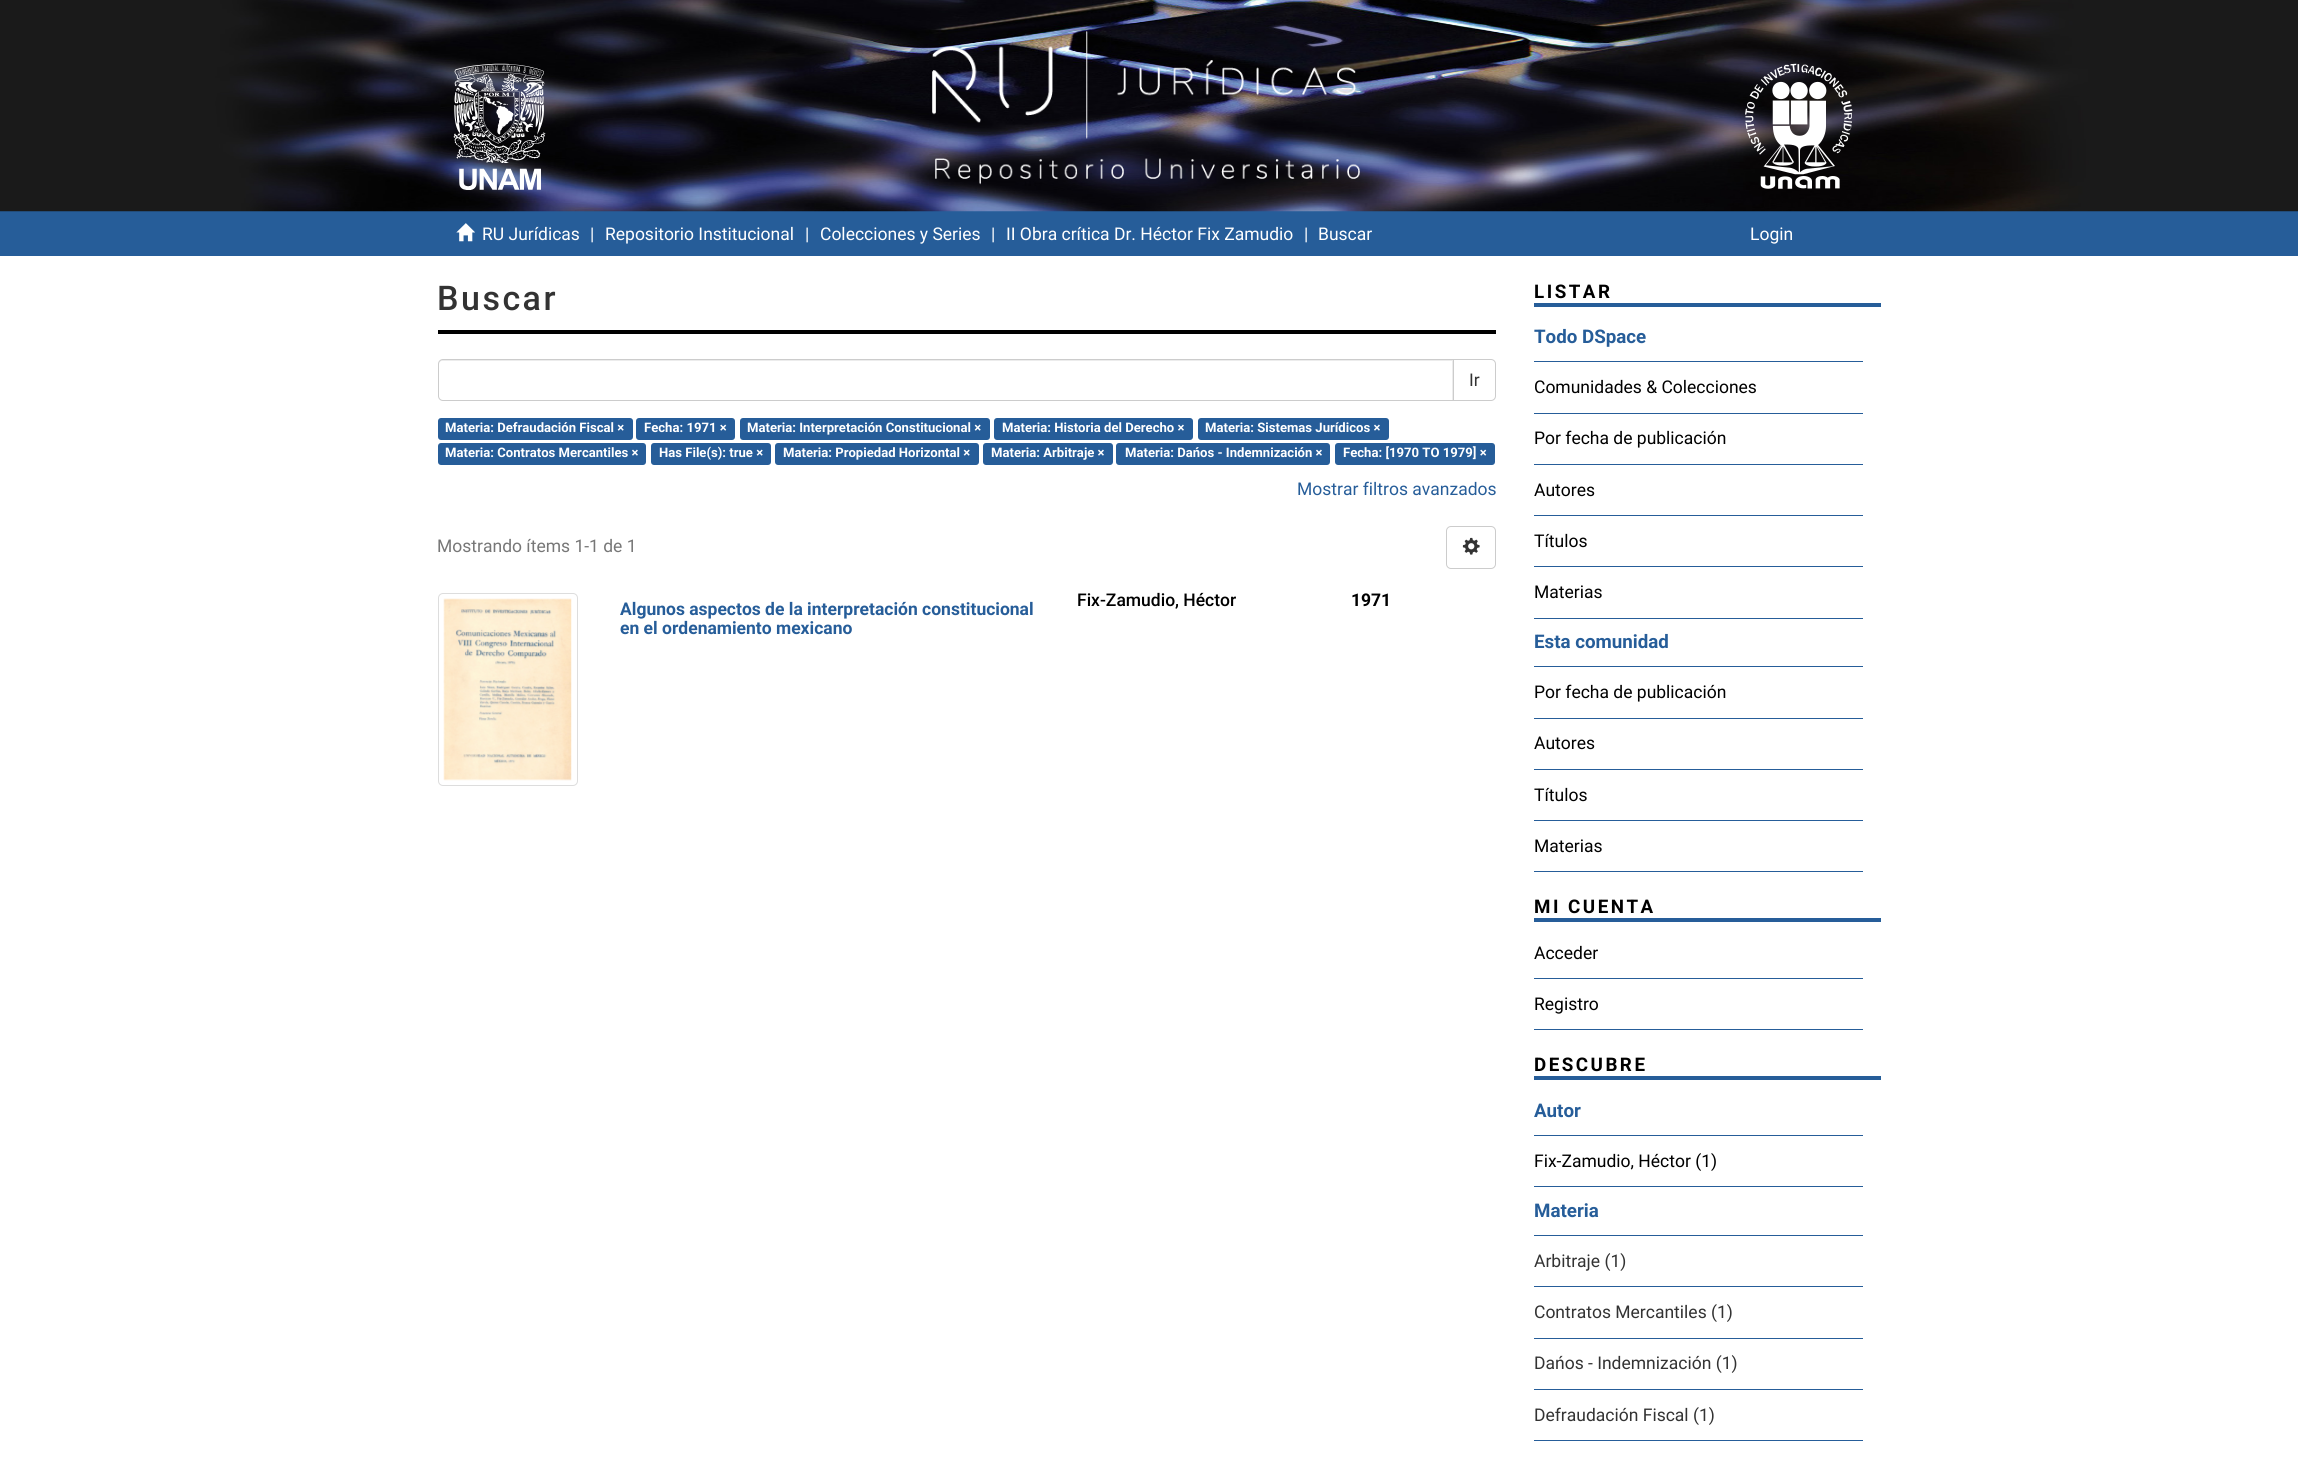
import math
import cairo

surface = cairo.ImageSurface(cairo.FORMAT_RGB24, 2298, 1463)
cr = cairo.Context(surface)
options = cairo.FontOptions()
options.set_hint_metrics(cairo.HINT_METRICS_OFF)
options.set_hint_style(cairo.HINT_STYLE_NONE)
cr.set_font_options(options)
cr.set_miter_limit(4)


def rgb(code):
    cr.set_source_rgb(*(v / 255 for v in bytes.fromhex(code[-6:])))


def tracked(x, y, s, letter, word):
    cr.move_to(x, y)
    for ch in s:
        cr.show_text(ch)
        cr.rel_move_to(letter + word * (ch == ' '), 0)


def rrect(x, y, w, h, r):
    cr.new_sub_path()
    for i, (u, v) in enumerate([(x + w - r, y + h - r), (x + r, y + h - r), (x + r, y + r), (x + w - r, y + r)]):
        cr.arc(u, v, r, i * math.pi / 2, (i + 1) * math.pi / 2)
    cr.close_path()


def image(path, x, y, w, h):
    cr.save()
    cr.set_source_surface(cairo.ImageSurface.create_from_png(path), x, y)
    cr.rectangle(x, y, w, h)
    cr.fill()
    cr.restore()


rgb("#ffffff")
cr.paint()
rgb("#265d99")
cr.rectangle(0, 211, 2298, 45)
cr.fill()
image("img/1.png", 0, 0, 2298, 212)
image("img/2.png", 453, 63, 93, 127)
image("img/3.png", 932, 31, 428, 154)
image("img/4.png", 1745, 63, 108, 126)
image("img/5.png", 456, 223, 19, 19)
rgb("#000000")
cr.rectangle(438, 330, 1058, 4)
cr.fill()
cr.new_path()
cr.move_to(1453.5, 359.5)
cr.line_to(1491, 359.5)
cr.curve_to(1493.5, 359.5, 1495.5, 361.5, 1495.5, 364)
cr.line_to(1495.5, 396)
cr.curve_to(1495.5, 398.5, 1493.5, 400.5, 1491, 400.5)
cr.line_to(1453.5, 400.5)
cr.close_path()
rgb("#cccccc")
cr.set_line_width(1)
cr.stroke()
rgb("#ffffff")
cr.new_path()
cr.move_to(443, 359)
cr.line_to(1454, 359)
cr.line_to(1454, 401)
cr.line_to(443, 401)
cr.curve_to(440, 401, 438, 399, 438, 396)
cr.line_to(438, 364)
cr.curve_to(438, 361, 440, 359, 443, 359)
cr.close_path()
cr.fill()
rgb("#ececec")
cr.new_path()
cr.move_to(442, 361)
cr.line_to(1452, 361)
cr.line_to(1452, 400)
cr.line_to(1453, 400)
cr.line_to(1453, 360)
cr.line_to(443, 360)
cr.curve_to(440, 360, 439, 362, 439, 365)
cr.curve_to(439, 363, 440, 361, 442, 361)
cr.close_path()
cr.fill()
cr.new_path()
cr.move_to(443, 359.5)
cr.line_to(1453.5, 359.5)
cr.line_to(1453.5, 400.5)
cr.line_to(443, 400.5)
cr.curve_to(440.5, 400.5, 438.5, 398.5, 438.5, 396)
cr.line_to(438.5, 364)
cr.curve_to(438.5, 361.5, 440.5, 359.5, 443, 359.5)
cr.close_path()
rgb("#cccccc")
cr.stroke()
rgb("#265d99")
rrect(438, 418, 195, 22, 3)
cr.fill()
rrect(636, 418, 99, 22, 3)
cr.fill()
rrect(740, 418, 250, 22, 3)
cr.fill()
rrect(994, 418, 199, 22, 3)
cr.fill()
rrect(1198, 418, 191, 22, 3)
cr.fill()
rrect(438, 443, 208, 22, 3)
cr.fill()
rrect(651, 443, 120, 22, 3)
cr.fill()
rrect(775, 443, 204, 22, 3)
cr.fill()
rrect(983, 443, 130, 22, 3)
cr.fill()
rrect(1116, 443, 214, 22, 3)
cr.fill()
rrect(1335, 443, 160, 22, 3)
cr.fill()
rrect(1446.5, 526.5, 49, 42, 4.5)
rgb("#cccccc")
cr.stroke()
image("img/6.png", 1462, 537, 18, 18)
rrect(438.5, 593.5, 139, 192, 4.5)
rgb("#dddddd")
cr.stroke()
image("img/7.png", 443, 598, 129, 183)
for x, y, w, h, color in [
    (1534, 303, 347, 4, "#265d99"),
    (1534, 361, 329, 1, "#265d99"),
    (1534, 413, 329, 1, "#265d99"),
    (1534, 464, 329, 1, "#265d99"),
    (1534, 515, 329, 1, "#265d99"),
    (1534, 566, 329, 1, "#265d99"),
    (1534, 618, 329, 1, "#265d99"),
    (1534, 666, 329, 1, "#265d99"),
    (1534, 718, 329, 1, "#265d99"),
    (1534, 769, 329, 1, "#265d99"),
    (1534, 820, 329, 1, "#265d99"),
    (1534, 871, 329, 1, "#265d99"),
    (1534, 918, 347, 4, "#265d99"),
    (1534, 978, 329, 1, "#265d99"),
    (1534, 1029, 329, 1, "#265d99"),
    (1534, 1076, 347, 4, "#265d99"),
    (1534, 1135, 329, 1, "#265d99"),
    (1534, 1186, 329, 1, "#265d99"),
    (1534, 1235, 329, 1, "#265d99"),
    (1534, 1286, 329, 1, "#265d99"),
    (1534, 1338, 329, 1, "#265d99"),
    (1534, 1389, 329, 1, "#265d99"),
    (1534, 1440, 329, 1, "#265d99"),
]:
    rgb(color)
    cr.rectangle(x, y, w, h)
    cr.fill()
cr.select_font_face("Roboto")
cr.set_font_size(17.5)
rgb("#ffffff")
for x, y, s in [
    (482, 240, "RU Jurídicas"),
    (590, 240, "|"),
    (605, 240, "Repositorio Institucional"),
    (805, 240, "|"),
    (820, 240, "Colecciones y Series"),
    (991, 240, "|"),
    (1006, 240, "II Obra crítica Dr. Héctor Fix Zamudio"),
    (1304, 240, "|"),
    (1318, 240, "Buscar"),
    (1750, 240, "Login"),
]:
    cr.move_to(x, y)
    cr.show_text(s)
cr.select_font_face("Roboto Medium")
cr.set_font_size(34)
rgb("#333333")
tracked(437, 310, "Buscar", 2.5, 0)
cr.select_font_face("Roboto")
cr.set_font_size(17.5)
cr.move_to(1469, 386)
cr.show_text("Ir")
cr.select_font_face("Roboto", cairo.FONT_SLANT_NORMAL, cairo.FONT_WEIGHT_BOLD)
cr.set_font_size(13.1)
rgb("#ffffff")
for x, y, s in [
    (445, 432, "Materia: Defraudación Fiscal ×"),
    (644, 432, "Fecha: 1971 ×"),
    (747, 432, "Materia: Interpretación Constitucional ×"),
    (1002, 432, "Materia: Historia del Derecho ×"),
    (1205, 432, "Materia: Sistemas Jurídicos ×"),
    (445, 457, "Materia: Contratos Mercantiles ×"),
    (659, 457, "Has File(s): true ×"),
    (783, 457, "Materia: Propiedad Horizontal ×"),
    (991, 457, "Materia: Arbitraje ×"),
    (1125, 457, "Materia: Dańos - Indemnización ×"),
    (1343, 457, "Fecha: [1970 TO 1979] ×"),
]:
    cr.move_to(x, y)
    cr.show_text(s)
cr.select_font_face("Roboto")
cr.set_font_size(17.5)
rgb("#265d99")
cr.move_to(1297, 495)
cr.show_text("Mostrar filtros avanzados")
rgb("#777777")
cr.move_to(437, 552)
cr.show_text("Mostrando ítems 1-1 de 1")
cr.select_font_face("Roboto", cairo.FONT_SLANT_NORMAL, cairo.FONT_WEIGHT_BOLD)
rgb("#265d99")
cr.move_to(620, 615)
cr.show_text("Algunos aspectos de la interpretación constitucional")
cr.move_to(620, 634)
cr.show_text("en el ordenamiento mexicano")
cr.select_font_face("Roboto Medium")
rgb("#000000")
cr.move_to(1077, 606)
cr.show_text("Fix-Zamudio, Héctor")
cr.select_font_face("Roboto", cairo.FONT_SLANT_NORMAL, cairo.FONT_WEIGHT_BOLD)
cr.move_to(1351, 606)
cr.show_text("1971")
cr.set_font_size(18.75)
tracked(1534, 298, "LISTAR", 2.5, 0)
rgb("#265d99")
cr.move_to(1534, 343)
cr.show_text("Todo DSpace")
cr.select_font_face("Roboto")
cr.set_font_size(17.5)
rgb("#000000")
for x, y, s in [
    (1534, 393, "Comunidades & Colecciones"),
    (1534, 444, "Por fecha de publicación"),
    (1534, 496, "Autores"),
    (1534, 547, "Títulos"),
    (1534, 598, "Materias"),
]:
    cr.move_to(x, y)
    cr.show_text(s)
cr.select_font_face("Roboto", cairo.FONT_SLANT_NORMAL, cairo.FONT_WEIGHT_BOLD)
cr.set_font_size(18.75)
rgb("#265d99")
cr.move_to(1534, 648)
cr.show_text("Esta comunidad")
cr.select_font_face("Roboto")
cr.set_font_size(17.5)
rgb("#000000")
for x, y, s in [
    (1534, 698, "Por fecha de publicación"),
    (1534, 749, "Autores"),
    (1534, 801, "Títulos"),
    (1534, 852, "Materias"),
]:
    cr.move_to(x, y)
    cr.show_text(s)
cr.select_font_face("Roboto", cairo.FONT_SLANT_NORMAL, cairo.FONT_WEIGHT_BOLD)
cr.set_font_size(18.75)
tracked(1534, 913, "MI CUENTA", 2.5, 0)
cr.select_font_face("Roboto")
cr.set_font_size(17.5)
cr.move_to(1534, 959)
cr.show_text("Acceder")
cr.move_to(1534, 1010)
cr.show_text("Registro")
cr.select_font_face("Roboto", cairo.FONT_SLANT_NORMAL, cairo.FONT_WEIGHT_BOLD)
cr.set_font_size(18.75)
tracked(1534, 1071, "DESCUBRE", 2.5, 0)
rgb("#265d99")
cr.move_to(1534, 1117)
cr.show_text("Autor")
cr.select_font_face("Roboto")
cr.set_font_size(17.5)
rgb("#000000")
cr.move_to(1534, 1167)
cr.show_text("Fix-Zamudio, Héctor (1)")
cr.select_font_face("Roboto", cairo.FONT_SLANT_NORMAL, cairo.FONT_WEIGHT_BOLD)
cr.set_font_size(18.75)
rgb("#265d99")
cr.move_to(1534, 1217)
cr.show_text("Materia")
cr.select_font_face("Roboto")
cr.set_font_size(17.5)
rgb("#333333")
for x, y, s in [
    (1534, 1267, "Arbitraje (1)"),
    (1534, 1318, "Contratos Mercantiles (1)"),
    (1534, 1369, "Dańos - Indemnización (1)"),
    (1534, 1421, "Defraudación Fiscal (1)"),
]:
    cr.move_to(x, y)
    cr.show_text(s)
surface.write_to_png("page.png")
